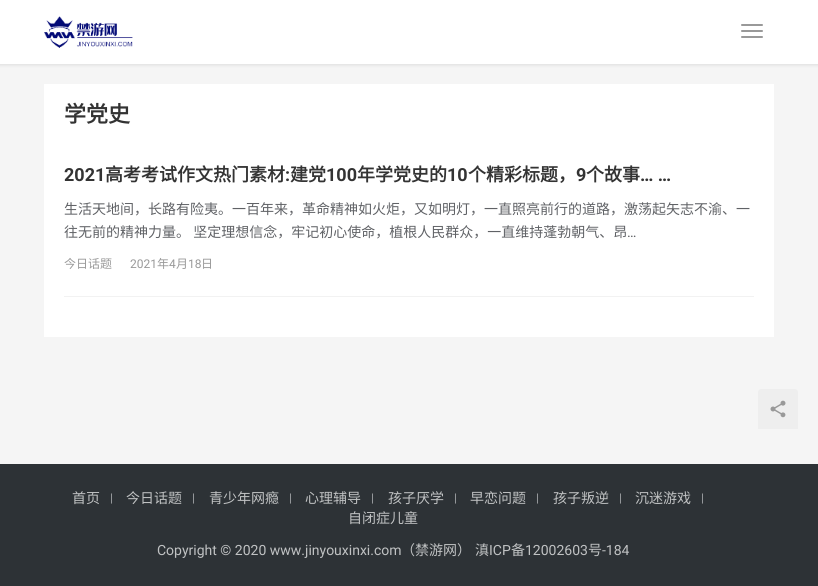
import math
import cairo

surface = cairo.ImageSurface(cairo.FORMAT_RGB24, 818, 586)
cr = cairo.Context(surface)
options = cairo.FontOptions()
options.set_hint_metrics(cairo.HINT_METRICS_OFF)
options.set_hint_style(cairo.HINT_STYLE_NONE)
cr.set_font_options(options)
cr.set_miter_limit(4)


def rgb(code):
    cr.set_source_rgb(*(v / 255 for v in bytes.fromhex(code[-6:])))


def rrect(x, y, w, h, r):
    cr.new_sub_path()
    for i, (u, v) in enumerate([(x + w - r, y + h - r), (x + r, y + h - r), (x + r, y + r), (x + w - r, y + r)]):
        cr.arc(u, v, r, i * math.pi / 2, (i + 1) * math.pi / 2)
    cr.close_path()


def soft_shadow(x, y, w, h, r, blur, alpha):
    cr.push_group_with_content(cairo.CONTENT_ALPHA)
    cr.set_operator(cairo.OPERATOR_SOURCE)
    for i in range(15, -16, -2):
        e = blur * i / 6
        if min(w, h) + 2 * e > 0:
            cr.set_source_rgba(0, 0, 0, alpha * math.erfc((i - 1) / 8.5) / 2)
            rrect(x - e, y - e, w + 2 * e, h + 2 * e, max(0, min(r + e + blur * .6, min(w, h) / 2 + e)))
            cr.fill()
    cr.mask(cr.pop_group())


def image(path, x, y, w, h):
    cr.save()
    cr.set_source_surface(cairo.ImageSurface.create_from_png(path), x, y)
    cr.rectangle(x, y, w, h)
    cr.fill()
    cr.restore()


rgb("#f5f5f5")
cr.paint()
rgb("#000000")
soft_shadow(-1, -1, 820, 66, 0, 1.5, 0.1)
rgb("#ffffff")
cr.rectangle(0, 0, 818, 64)
cr.fill()
image("img/1.png", 44, 16, 89, 32)
rgb("#999999")
rrect(741, 24, 22, 2, 1)
cr.fill()
rrect(741, 30, 22, 2, 1)
cr.fill()
rrect(741, 36, 22, 2, 1)
cr.fill()
rgb("#ffffff")
cr.rectangle(44, 84, 730, 253)
cr.fill()
rgb("#f2f2f2")
cr.rectangle(64, 296, 690, 1)
cr.fill()
rgb("#eeeeee")
cr.new_path()
cr.move_to(761, 389)
cr.line_to(795, 389)
cr.curve_to(796.5, 389, 798, 390.5, 798, 392)
cr.line_to(798, 429)
cr.line_to(758, 429)
cr.line_to(758, 392)
cr.curve_to(758, 390.5, 759.5, 389, 761, 389)
cr.close_path()
cr.fill()
image("img/2.png", 770, 400, 16, 18)
rgb("#2d3236")
cr.rectangle(0, 464, 818, 122)
cr.fill()
cr.select_font_face("Noto Sans CJK SC", cairo.FONT_SLANT_NORMAL, cairo.FONT_WEIGHT_BOLD)
cr.set_font_size(22)
rgb("#333333")
cr.move_to(64, 122)
cr.show_text("学党史")
cr.select_font_face("Roboto", cairo.FONT_SLANT_NORMAL, cairo.FONT_WEIGHT_BOLD)
cr.set_font_size(18)
cr.move_to(64, 181)
cr.show_text("2021")
cr.select_font_face("Noto Sans CJK SC", cairo.FONT_SLANT_NORMAL, cairo.FONT_WEIGHT_BOLD)
cr.move_to(105, 181)
cr.show_text("高考考试作文热门素材")
cr.select_font_face("Roboto", cairo.FONT_SLANT_NORMAL, cairo.FONT_WEIGHT_BOLD)
cr.move_to(285, 181)
cr.show_text(":")
cr.select_font_face("Noto Sans CJK SC", cairo.FONT_SLANT_NORMAL, cairo.FONT_WEIGHT_BOLD)
cr.move_to(290, 181)
cr.show_text("建党")
cr.select_font_face("Roboto", cairo.FONT_SLANT_NORMAL, cairo.FONT_WEIGHT_BOLD)
cr.move_to(326, 181)
cr.show_text("100")
cr.select_font_face("Noto Sans CJK SC", cairo.FONT_SLANT_NORMAL, cairo.FONT_WEIGHT_BOLD)
cr.move_to(357, 181)
cr.show_text("年学党史的")
cr.select_font_face("Roboto", cairo.FONT_SLANT_NORMAL, cairo.FONT_WEIGHT_BOLD)
cr.move_to(447, 181)
cr.show_text("10")
cr.select_font_face("Noto Sans CJK SC", cairo.FONT_SLANT_NORMAL, cairo.FONT_WEIGHT_BOLD)
cr.move_to(468, 181)
cr.show_text("个精彩标题，")
cr.select_font_face("Roboto", cairo.FONT_SLANT_NORMAL, cairo.FONT_WEIGHT_BOLD)
cr.move_to(576, 181)
cr.show_text("9")
cr.select_font_face("Noto Sans CJK SC", cairo.FONT_SLANT_NORMAL, cairo.FONT_WEIGHT_BOLD)
cr.move_to(586, 181)
cr.show_text("个故事")
cr.select_font_face("Roboto", cairo.FONT_SLANT_NORMAL, cairo.FONT_WEIGHT_BOLD)
cr.move_to(640, 181)
cr.show_text("… …")
cr.select_font_face("Noto Sans CJK SC")
cr.set_font_size(14)
rgb("#606266")
cr.move_to(64, 214)
cr.show_text("生活天地间，长路有险夷。一百年来，革命精神如火炬，又如明灯，一直照亮前行的道路，激荡起矢志不渝、一")
cr.move_to(64, 237)
cr.show_text("往无前的精神力量。 坚定理想信念，牢记初心使命，植根人民群众，一直维持蓬勃朝气、昂")
cr.select_font_face("Roboto")
cr.move_to(627, 237)
cr.show_text("…")
cr.select_font_face("Noto Sans CJK SC")
cr.set_font_size(12)
rgb("#999999")
cr.move_to(64, 268)
cr.show_text("今日话题")
cr.select_font_face("Roboto")
cr.move_to(130, 268)
cr.show_text("2021")
cr.select_font_face("Noto Sans CJK SC")
cr.move_to(157, 268)
cr.show_text("年")
cr.select_font_face("Roboto")
cr.move_to(169, 268)
cr.show_text("4")
cr.select_font_face("Noto Sans CJK SC")
cr.move_to(176, 268)
cr.show_text("月")
cr.select_font_face("Roboto")
cr.move_to(188, 268)
cr.show_text("18")
cr.select_font_face("Noto Sans CJK SC")
cr.move_to(201, 268)
cr.show_text("日")
cr.set_font_size(14)
rgb("#c0c2c3")
cr.move_to(72, 503)
cr.show_text("首页")
cr.select_font_face("Roboto")
cr.set_font_size(12)
rgb("#a3a5a7")
cr.move_to(110, 502)
cr.show_text("|")
cr.select_font_face("Noto Sans CJK SC")
cr.set_font_size(14)
rgb("#c0c2c3")
cr.move_to(126, 503)
cr.show_text("今日话题")
cr.select_font_face("Roboto")
cr.set_font_size(12)
rgb("#a3a5a7")
cr.move_to(192, 502)
cr.show_text("|")
cr.select_font_face("Noto Sans CJK SC")
cr.set_font_size(14)
rgb("#c0c2c3")
cr.move_to(209, 503)
cr.show_text("青少年网瘾")
cr.select_font_face("Roboto")
cr.set_font_size(12)
rgb("#a3a5a7")
cr.move_to(289, 502)
cr.show_text("|")
cr.select_font_face("Noto Sans CJK SC")
cr.set_font_size(14)
rgb("#c0c2c3")
cr.move_to(305, 503)
cr.show_text("心理辅导")
cr.select_font_face("Roboto")
cr.set_font_size(12)
rgb("#a3a5a7")
cr.move_to(371, 502)
cr.show_text("|")
cr.select_font_face("Noto Sans CJK SC")
cr.set_font_size(14)
rgb("#c0c2c3")
cr.move_to(388, 503)
cr.show_text("孩子厌学")
cr.select_font_face("Roboto")
cr.set_font_size(12)
rgb("#a3a5a7")
cr.move_to(454, 502)
cr.show_text("|")
cr.select_font_face("Noto Sans CJK SC")
cr.set_font_size(14)
rgb("#c0c2c3")
cr.move_to(470, 503)
cr.show_text("早恋问题")
cr.select_font_face("Roboto")
cr.set_font_size(12)
rgb("#a3a5a7")
cr.move_to(536, 502)
cr.show_text("|")
cr.select_font_face("Noto Sans CJK SC")
cr.set_font_size(14)
rgb("#c0c2c3")
cr.move_to(553, 503)
cr.show_text("孩子叛逆")
cr.select_font_face("Roboto")
cr.set_font_size(12)
rgb("#a3a5a7")
cr.move_to(619, 502)
cr.show_text("|")
cr.select_font_face("Noto Sans CJK SC")
cr.set_font_size(14)
rgb("#c0c2c3")
cr.move_to(635, 503)
cr.show_text("沉迷游戏")
cr.select_font_face("Roboto")
cr.set_font_size(12)
rgb("#a3a5a7")
cr.move_to(701, 502)
cr.show_text("|")
cr.select_font_face("Noto Sans CJK SC")
cr.set_font_size(14)
rgb("#c0c2c3")
cr.move_to(348, 523)
cr.show_text("自闭症儿童")
cr.select_font_face("Roboto")
cr.move_to(157, 555)
cr.show_text("Copyright © 2020 www.jinyouxinxi.com")
cr.select_font_face("Noto Sans CJK SC")
cr.move_to(401, 555)
cr.show_text("（禁游网）")
cr.move_to(475, 555)
cr.show_text("滇")
cr.select_font_face("Roboto")
cr.move_to(489, 555)
cr.show_text("ICP")
cr.select_font_face("Noto Sans CJK SC")
cr.move_to(511, 555)
cr.show_text("备")
cr.select_font_face("Roboto")
cr.move_to(525, 555)
cr.show_text("12002603")
cr.select_font_face("Noto Sans CJK SC")
cr.move_to(588, 555)
cr.show_text("号")
cr.select_font_face("Roboto")
cr.move_to(602, 555)
cr.show_text("-184")
surface.write_to_png("page.png")
